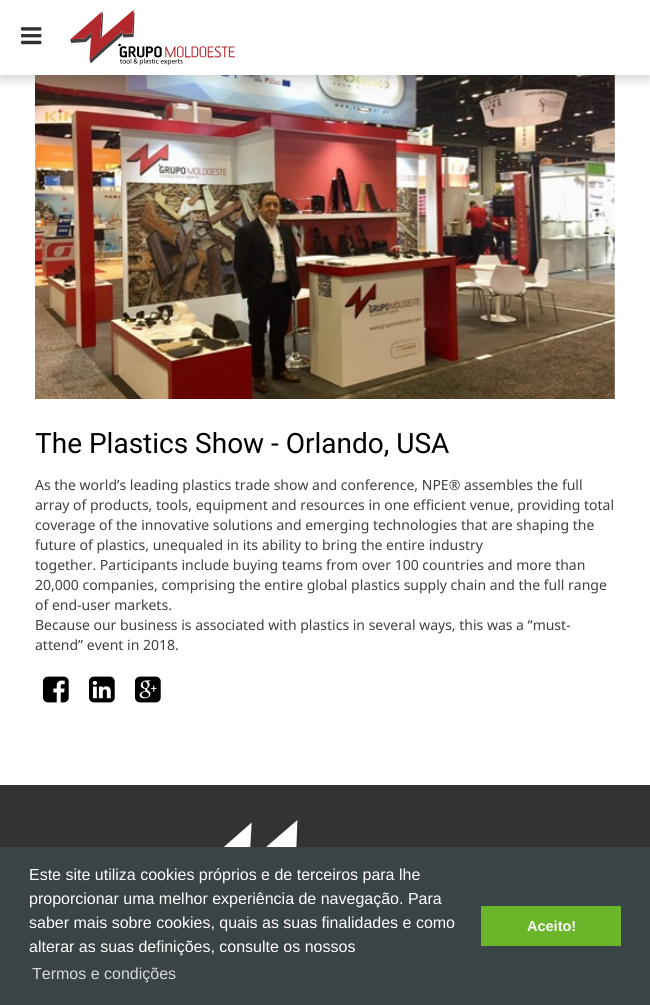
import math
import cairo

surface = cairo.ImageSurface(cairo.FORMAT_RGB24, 650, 1005)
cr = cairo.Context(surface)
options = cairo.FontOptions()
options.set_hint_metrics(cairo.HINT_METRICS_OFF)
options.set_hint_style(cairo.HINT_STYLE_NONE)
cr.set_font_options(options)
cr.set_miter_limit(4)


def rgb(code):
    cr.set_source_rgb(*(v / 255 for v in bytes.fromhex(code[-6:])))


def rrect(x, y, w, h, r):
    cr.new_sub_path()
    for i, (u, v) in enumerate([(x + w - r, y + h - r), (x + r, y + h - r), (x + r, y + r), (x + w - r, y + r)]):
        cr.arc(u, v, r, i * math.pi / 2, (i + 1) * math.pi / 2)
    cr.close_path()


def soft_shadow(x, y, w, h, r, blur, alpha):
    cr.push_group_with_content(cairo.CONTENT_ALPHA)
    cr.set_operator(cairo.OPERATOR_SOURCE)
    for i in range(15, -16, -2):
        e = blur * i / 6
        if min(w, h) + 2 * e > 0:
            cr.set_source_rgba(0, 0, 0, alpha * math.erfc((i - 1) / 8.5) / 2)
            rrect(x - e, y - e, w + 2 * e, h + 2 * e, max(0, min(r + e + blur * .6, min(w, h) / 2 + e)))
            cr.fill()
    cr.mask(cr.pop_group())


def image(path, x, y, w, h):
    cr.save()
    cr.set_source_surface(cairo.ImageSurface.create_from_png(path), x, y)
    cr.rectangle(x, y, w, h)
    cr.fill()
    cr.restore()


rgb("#ffffff")
cr.paint()
image("img/3.png", 35, 75, 580, 324)
rgb("#2e3232")
soft_shadow(0, 5, 650, 75, 0, 5, 0.2)
rgb("#ffffff")
cr.rectangle(0, 0, 650, 75)
cr.fill()
image("img/1.png", 21, 27, 21, 18)
image("img/2.png", 70, 10, 165, 55)
image("img/4.png", 43, 676, 26, 27)
image("img/5.png", 89, 676, 26, 27)
image("img/6.png", 135, 676, 26, 27)
rgb("#333333")
cr.rectangle(0, 785, 650, 62)
cr.fill()
image("img/7.png", 224, 820, 74, 27)
rgb("#3a4346")
cr.rectangle(0, 847, 650, 158)
cr.fill()
rgb("#6bb52b")
cr.rectangle(481, 906, 140, 40)
cr.fill()
cr.select_font_face("Roboto")
cr.set_font_size(28)
rgb("#000000")
cr.move_to(35, 453)
cr.show_text("The Plastics Show - Orlando, USA")
cr.select_font_face("Noto Sans")
cr.set_font_size(14)
rgb("#404040")
for x, y, s in [
    (35, 490, "As the world’s leading plastics trade show and conference, NPE® assembles the full"),
    (35, 510, "array of products, tools, equipment and resources in one efficient venue, providing total"),
    (35, 530, "coverage of the innovative solutions and emerging technologies that are shaping the"),
    (35, 550, "future of plastics, unequaled in its ability to bring the entire industry"),
    (35, 570, "together. Participants include buying teams from over 100 countries and more than"),
    (35, 590, "20,000 companies, comprising the entire global plastics supply chain and the full range"),
    (35, 610, "of end-user markets."),
    (35, 630, "Because our business is associated with plastics in several ways, this was a “must-"),
    (35, 650, "attend” event in 2018."),
]:
    cr.move_to(x, y)
    cr.show_text(s)
cr.select_font_face("Liberation Sans")
cr.set_font_size(16)
rgb("#ffffff")
for x, y, s in [
    (29, 880, "Este site utiliza cookies próprios e de terceiros para lhe"),
    (29, 904, "proporcionar uma melhor experiência de navegação. Para"),
    (29, 928, "saber mais sobre cookies, quais as suas finalidades e como"),
    (29, 952, "alterar as suas definições, consulte os nossos"),
]:
    cr.move_to(x, y)
    cr.show_text(s)
rgb("#d8d9da")
cr.move_to(32, 979)
cr.show_text("Termos e condições")
cr.select_font_face("Liberation Sans", cairo.FONT_SLANT_NORMAL, cairo.FONT_WEIGHT_BOLD)
cr.set_font_size(14.5)
rgb("#ffffff")
cr.move_to(527, 931)
cr.show_text("Aceito!")
surface.write_to_png("page.png")
